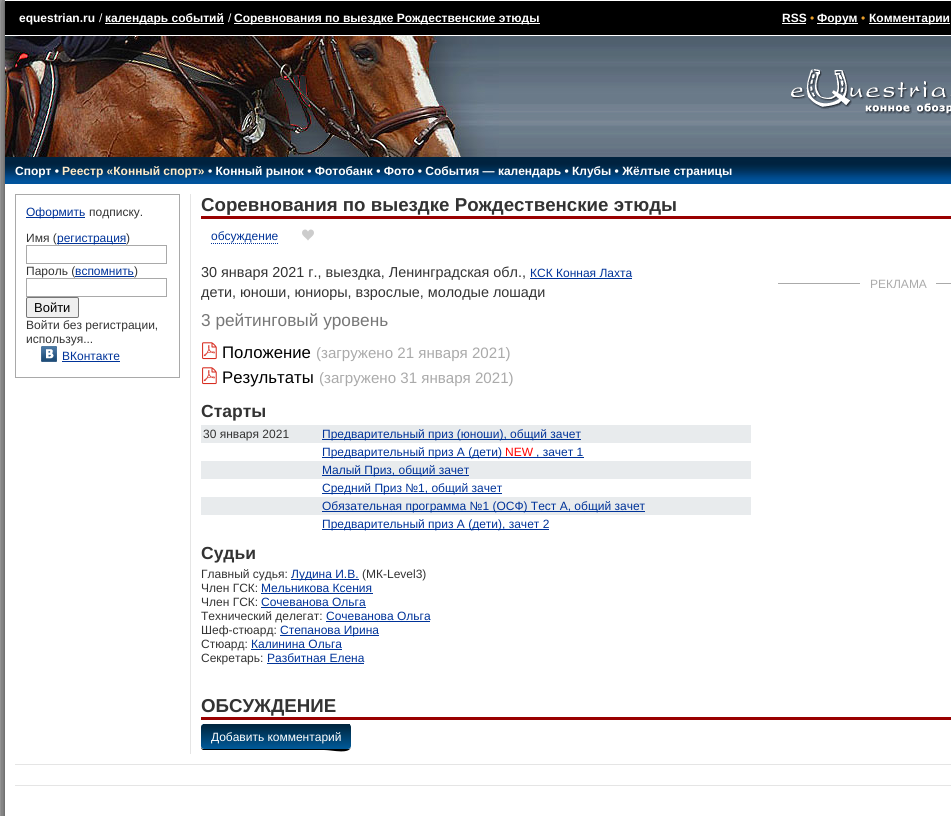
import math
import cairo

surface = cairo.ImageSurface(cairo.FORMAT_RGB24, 951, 816)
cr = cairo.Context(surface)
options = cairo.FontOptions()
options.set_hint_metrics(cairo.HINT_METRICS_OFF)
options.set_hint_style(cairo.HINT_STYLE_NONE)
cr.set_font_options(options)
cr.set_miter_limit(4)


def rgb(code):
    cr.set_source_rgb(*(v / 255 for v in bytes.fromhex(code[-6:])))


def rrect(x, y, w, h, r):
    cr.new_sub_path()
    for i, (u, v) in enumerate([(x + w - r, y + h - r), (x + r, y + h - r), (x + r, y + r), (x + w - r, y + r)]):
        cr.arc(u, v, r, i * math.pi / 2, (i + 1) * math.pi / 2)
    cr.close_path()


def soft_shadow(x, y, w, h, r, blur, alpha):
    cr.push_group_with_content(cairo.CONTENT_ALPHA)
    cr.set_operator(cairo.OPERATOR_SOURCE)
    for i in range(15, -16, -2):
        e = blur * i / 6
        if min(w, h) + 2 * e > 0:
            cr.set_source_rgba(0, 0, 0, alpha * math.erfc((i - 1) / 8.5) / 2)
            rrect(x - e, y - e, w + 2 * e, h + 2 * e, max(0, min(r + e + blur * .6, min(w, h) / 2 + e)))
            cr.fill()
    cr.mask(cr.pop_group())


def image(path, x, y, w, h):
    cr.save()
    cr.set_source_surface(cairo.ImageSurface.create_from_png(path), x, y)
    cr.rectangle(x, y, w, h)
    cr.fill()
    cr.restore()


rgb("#c0c0c0")
cr.paint()
rgb("#212121")
soft_shadow(5, 0, 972, 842, 0, 8.5, 1)
for x, y, w, h, color in [
    (5, 1, 946, 34, "#000000"),
    (5, 0, 946, 1, "#ffffff"),
    (5, 35, 946, 1, "#ffffff"),
    (105, 23, 119, 1, "#ffffff"),
    (234, 23, 306, 1, "#ffffff"),
    (782, 23, 24, 1, "#ffffff"),
    (817, 23, 41, 1, "#ffffff"),
    (869, 23, 81, 1, "#ffffff"),
]:
    rgb(color)
    cr.rectangle(x, y, w, h)
    cr.fill()
image("img/1.png", 499, 36, 269, 121)
image("img/2.png", 5, 36, 494, 121)
image("img/3.png", 768, 36, 183, 121)
image("img/4.png", 791, 69, 160, 47)
image("img/5.png", 5, 157, 946, 27)
cr.rectangle(5, 184, 946, 632)
cr.fill()
rgb("#e5e5e5")
cr.rectangle(190, 194, 1, 560)
cr.fill()
cr.rectangle(15.5, 194.5, 164, 183)
rgb("#a9a9a9")
cr.set_line_width(1)
cr.stroke()
rgb("#003399")
cr.rectangle(26, 217, 59, 1)
cr.fill()
cr.rectangle(57, 243, 69, 1)
cr.fill()
cr.rectangle(26.5, 245.5, 140, 18)
rgb("#a9a9a9")
cr.stroke()
cr.rectangle(26.5, 278.5, 140, 18)
cr.stroke()
rgb("#efefef")
rrect(26.5, 297.5, 52, 20, 1.5)
cr.fill_preserve()
rgb("#767676")
cr.stroke()
image("img/6.png", 41, 346, 16, 16)
rgb("#003399")
cr.rectangle(62, 361, 58, 1)
cr.fill()
rgb("#990000")
cr.rectangle(201, 216, 750, 3)
cr.fill()
cr.new_path()
cr.move_to(211, 243.5)
cr.line_to(278, 243.5)
rgb("#003399")
cr.set_dash([1, 1])
cr.stroke()
image("img/7.png", 302, 229, 12, 12)
for x, y, w, h, color in [
    (530, 278, 102, 1, "#003399"),
    (778, 283, 173, 1, "#aaaaaa"),
    (860, 283, 76, 1, "#ffffff"),
]:
    rgb(color)
    cr.rectangle(x, y, w, h)
    cr.fill()
image("img/8.png", 202, 342, 15, 18)
image("img/8.png", 202, 367, 15, 18)
for x, y, w, h, color in [
    (201, 425, 550, 18, "#e8ebed"),
    (322, 439, 259, 1, "#003399"),
    (322, 457, 262, 1, "#003399"),
    (201, 461, 550, 18, "#e8ebed"),
    (322, 475, 147, 1, "#003399"),
    (322, 493, 180, 1, "#003399"),
    (201, 497, 550, 18, "#e8ebed"),
    (322, 511, 323, 1, "#003399"),
    (322, 529, 227, 1, "#003399"),
    (291, 579, 68, 1, "#003399"),
    (261, 593, 112, 1, "#003399"),
    (261, 607, 105, 1, "#003399"),
    (326, 621, 104, 1, "#003399"),
    (280, 635, 99, 1, "#003399"),
    (251, 649, 91, 1, "#003399"),
    (267, 663, 97, 1, "#003399"),
    (201, 717, 750, 3, "#990000"),
]:
    rgb(color)
    cr.rectangle(x, y, w, h)
    cr.fill()
rgb("#000000")
cr.new_path()
cr.move_to(201, 746)
cr.curve_to(201, 748, 201, 749, 203, 750)
cr.line_to(324, 750)
cr.curve_to(332, 750, 351, 755, 351, 746)
cr.curve_to(351, 748, 350, 749, 348, 749)
cr.line_to(204, 749)
cr.curve_to(202, 749, 201, 748, 201, 746)
cr.close_path()
cr.fill()
cr.save()
rrect(201, 724, 150, 25, 3)
cr.clip()
gradient = cairo.LinearGradient(276, 701, 276, 725)
gradient.add_color_stop_rgba(0, 0, 0.149, 0.243, 1)
gradient.add_color_stop_rgba(1, 0, 0.353, 0.604, 1)
cr.set_source(gradient)
cr.rectangle(201, 724, 150, 1)
cr.fill()
gradient = cairo.LinearGradient(276, 725, 276, 749)
gradient.add_color_stop_rgba(0, 0, 0.149, 0.243, 1)
gradient.add_color_stop_rgba(1, 0, 0.353, 0.604, 1)
cr.set_source(gradient)
cr.new_path()
cr.move_to(201, 725)
cr.line_to(351, 725)
cr.line_to(351, 746)
cr.curve_to(351, 747.5, 349.5, 749, 348, 749)
cr.line_to(204, 749)
cr.curve_to(202.5, 749, 201, 747.5, 201, 746)
cr.close_path()
cr.fill()
cr.restore()
for x, y, w, h, color in [
    (203, 724, 147, 1, "#00263e"),
    (15, 764, 936, 1, "#e5e5e5"),
    (15, 785, 936, 1, "#e5e5e5"),
]:
    rgb(color)
    cr.rectangle(x, y, w, h)
    cr.fill()
cr.select_font_face("Liberation Sans", cairo.FONT_SLANT_NORMAL, cairo.FONT_WEIGHT_BOLD)
cr.set_font_size(12)
rgb("#ffffff")
cr.move_to(19, 22)
cr.show_text("equestrian.ru")
cr.select_font_face("Liberation Sans")
cr.move_to(99, 22)
cr.show_text("/")
cr.select_font_face("Liberation Sans", cairo.FONT_SLANT_NORMAL, cairo.FONT_WEIGHT_BOLD)
cr.move_to(105, 22)
cr.show_text("календарь событий")
cr.select_font_face("Liberation Sans")
cr.move_to(228, 22)
cr.show_text("/")
cr.select_font_face("Liberation Sans", cairo.FONT_SLANT_NORMAL, cairo.FONT_WEIGHT_BOLD)
cr.move_to(234, 22)
cr.show_text("Соревнования по выездке Рождественские этюды")
cr.move_to(782, 22)
cr.show_text("RSS")
cr.select_font_face("Liberation Sans")
rgb("#eba02b")
cr.move_to(810, 22)
cr.show_text("•")
cr.select_font_face("Liberation Sans", cairo.FONT_SLANT_NORMAL, cairo.FONT_WEIGHT_BOLD)
rgb("#ffffff")
cr.move_to(817, 22)
cr.show_text("Форум")
cr.select_font_face("Liberation Sans")
rgb("#eba02b")
cr.move_to(861, 22)
cr.show_text("•")
cr.select_font_face("Liberation Sans", cairo.FONT_SLANT_NORMAL, cairo.FONT_WEIGHT_BOLD)
rgb("#ffffff")
cr.move_to(869, 22)
cr.show_text("Комментарии")
cr.move_to(15, 175)
cr.show_text("Спорт •")
rgb("#feeac7")
cr.move_to(62, 175)
cr.show_text("Реестр «Конный спорт»")
rgb("#ffffff")
cr.move_to(208, 175)
cr.show_text("• Конный рынок • Фотобанк • Фото • События — календарь • Клубы • Жёлтые страницы")
cr.select_font_face("Liberation Sans")
rgb("#003399")
cr.move_to(26, 216)
cr.show_text("Оформить")
rgb("#333333")
cr.move_to(89, 216)
cr.show_text("подписку.")
cr.move_to(26, 242)
cr.show_text("Имя (")
rgb("#003399")
cr.move_to(57, 242)
cr.show_text("регистрация")
rgb("#333333")
cr.move_to(126, 242)
cr.show_text(")")
cr.move_to(26, 275)
cr.show_text("Пароль (")
rgb("#003399")
cr.move_to(75, 275)
cr.show_text("вспомнить")
cr.rectangle(75, 276, 59, 1)
cr.fill()
rgb("#333333")
cr.move_to(134, 275)
cr.show_text(")")
cr.set_font_size(13)
rgb("#000000")
cr.move_to(34, 312)
cr.show_text("Войти")
cr.set_font_size(12)
rgb("#333333")
cr.move_to(26, 329)
cr.show_text("Войти без регистрации,")
cr.move_to(26, 343)
cr.show_text("используя...")
rgb("#003399")
cr.move_to(62, 360)
cr.show_text("ВКонтакте")
cr.select_font_face("Liberation Sans", cairo.FONT_SLANT_NORMAL, cairo.FONT_WEIGHT_BOLD)
cr.set_font_size(18.7)
rgb("#333333")
cr.move_to(201, 211)
cr.show_text("Соревнования по выездке Рождественские этюды")
cr.select_font_face("Liberation Sans")
cr.set_font_size(12)
rgb("#003399")
cr.move_to(211, 240)
cr.show_text("обсуждение")
cr.set_font_size(14.4)
rgb("#333333")
cr.move_to(201, 277)
cr.show_text("30 января 2021 г., выездка, Ленинградская обл.,")
cr.set_font_size(12)
rgb("#003399")
cr.move_to(530, 277)
cr.show_text("КСК Конная Лахта")
cr.set_font_size(14.4)
rgb("#333333")
cr.move_to(201, 297)
cr.show_text("дети, юноши, юниоры, взрослые, молодые лошади")
cr.set_font_size(17.25)
rgb("#777777")
cr.move_to(201, 326)
cr.show_text("3 рейтинговый уровень")
cr.set_font_size(12)
rgb("#aaaaaa")
cr.move_to(870, 288)
cr.show_text("РЕКЛАМА")
cr.set_font_size(16.75)
rgb("#000000")
cr.move_to(222, 358)
cr.show_text("Положение")
cr.set_font_size(15.1)
rgb("#aaaaaa")
cr.move_to(316, 358)
cr.show_text("(загружено 21 января 2021)")
cr.set_font_size(16.75)
rgb("#000000")
cr.move_to(222, 383)
cr.show_text("Результаты")
cr.set_font_size(15.1)
rgb("#aaaaaa")
cr.move_to(319, 383)
cr.show_text("(загружено 31 января 2021)")
cr.select_font_face("Liberation Sans", cairo.FONT_SLANT_NORMAL, cairo.FONT_WEIGHT_BOLD)
cr.set_font_size(17.5)
rgb("#333333")
cr.move_to(201, 417)
cr.show_text("Старты")
cr.select_font_face("Liberation Sans")
cr.set_font_size(12)
cr.move_to(203, 438)
cr.show_text("30 января 2021")
rgb("#003399")
cr.move_to(322, 438)
cr.show_text("Предварительный приз (юноши), общий зачет")
cr.move_to(322, 456)
cr.show_text("Предварительный приз А (дети)")
rgb("#ff0000")
cr.move_to(505, 456)
cr.show_text("NEW")
rgb("#003399")
for x, y, s in [
    (536, 456, ", зачет 1"),
    (322, 474, "Малый Приз, общий зачет"),
    (322, 492, "Средний Приз №1, общий зачет"),
    (322, 510, "Обязательная программа №1 (ОСФ) Тест А, общий зачет"),
    (322, 528, "Предварительный приз А (дети), зачет 2"),
]:
    cr.move_to(x, y)
    cr.show_text(s)
cr.select_font_face("Liberation Sans", cairo.FONT_SLANT_NORMAL, cairo.FONT_WEIGHT_BOLD)
cr.set_font_size(17.5)
rgb("#333333")
cr.move_to(201, 559)
cr.show_text("Судьи")
cr.select_font_face("Liberation Sans")
cr.set_font_size(12)
cr.move_to(201, 578)
cr.show_text("Главный судья:")
rgb("#003399")
cr.move_to(291, 578)
cr.show_text("Лудина И.В.")
rgb("#333333")
cr.move_to(362, 578)
cr.show_text("(МК-Level3)")
cr.move_to(201, 592)
cr.show_text("Член ГСК:")
rgb("#003399")
cr.move_to(261, 592)
cr.show_text("Мельникова Ксения")
rgb("#333333")
cr.move_to(201, 606)
cr.show_text("Член ГСК:")
rgb("#003399")
cr.move_to(261, 606)
cr.show_text("Сочеванова Ольга")
rgb("#333333")
cr.move_to(201, 620)
cr.show_text("Технический делегат:")
rgb("#003399")
cr.move_to(326, 620)
cr.show_text("Сочеванова Ольга")
rgb("#333333")
cr.move_to(201, 634)
cr.show_text("Шеф-стюард:")
rgb("#003399")
cr.move_to(280, 634)
cr.show_text("Степанова Ирина")
rgb("#333333")
cr.move_to(201, 648)
cr.show_text("Стюард:")
rgb("#003399")
cr.move_to(251, 648)
cr.show_text("Калинина Ольга")
rgb("#333333")
cr.move_to(201, 662)
cr.show_text("Секретарь:")
rgb("#003399")
cr.move_to(267, 662)
cr.show_text("Разбитная Елена")
cr.select_font_face("Liberation Sans", cairo.FONT_SLANT_NORMAL, cairo.FONT_WEIGHT_BOLD)
cr.set_font_size(18.7)
rgb("#333333")
cr.move_to(201, 712)
cr.show_text("ОБСУЖДЕНИЕ")
cr.select_font_face("Liberation Sans")
cr.set_font_size(12)
rgb("#ffffff")
cr.move_to(211, 741)
cr.show_text("Добавить комментарий")
surface.write_to_png("page.png")
